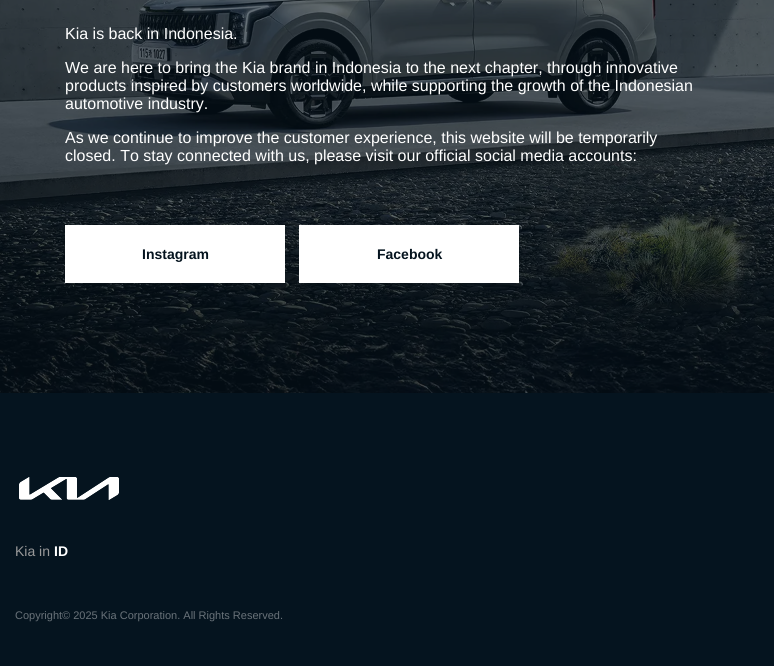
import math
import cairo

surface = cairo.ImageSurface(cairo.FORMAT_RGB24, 774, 666)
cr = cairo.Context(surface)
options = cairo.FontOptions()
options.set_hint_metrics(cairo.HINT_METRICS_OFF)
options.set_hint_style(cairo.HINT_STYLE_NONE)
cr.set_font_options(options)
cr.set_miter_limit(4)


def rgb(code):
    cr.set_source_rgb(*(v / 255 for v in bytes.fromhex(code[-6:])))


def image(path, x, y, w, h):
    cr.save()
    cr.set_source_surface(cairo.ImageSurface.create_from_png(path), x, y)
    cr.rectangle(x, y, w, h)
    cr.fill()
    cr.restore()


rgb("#05141f")
cr.paint()
image("img/1.png", 0, 0, 774, 393)
rgb("#ffffff")
cr.rectangle(65, 225, 220, 58)
cr.fill()
cr.rectangle(299, 225, 220, 58)
cr.fill()
image("img/2.png", 19, 477, 100, 23)
cr.select_font_face("Liberation Sans")
cr.set_font_size(16)
for x, y, s in [
    (65, 39, "Kia is back in Indonesia."),
    (65, 73, "We are here to bring the Kia brand in Indonesia to the next chapter, through innovative"),
    (65, 91, "products inspired by customers worldwide, while supporting the growth of the Indonesian"),
    (65, 109, "automotive industry."),
    (65, 143, "As we continue to improve the customer experience, this website will be temporarily"),
    (65, 161, "closed. To stay connected with us, please visit our official social media accounts:"),
]:
    cr.move_to(x, y)
    cr.show_text(s)
cr.select_font_face("Liberation Sans", cairo.FONT_SLANT_NORMAL, cairo.FONT_WEIGHT_BOLD)
cr.set_font_size(14)
rgb("#05141f")
cr.move_to(142, 259)
cr.show_text("Instagram")
cr.move_to(377, 259)
cr.show_text("Facebook")
cr.select_font_face("Liberation Sans")
rgb("#999999")
cr.move_to(15, 556)
cr.show_text("Kia in")
cr.select_font_face("Liberation Sans", cairo.FONT_SLANT_NORMAL, cairo.FONT_WEIGHT_BOLD)
rgb("#ffffff")
cr.move_to(54, 556)
cr.show_text("ID")
cr.select_font_face("Liberation Sans")
cr.set_font_size(11)
rgb("#697279")
cr.move_to(15, 619)
cr.show_text("Copyright© 2025 Kia Corporation. All Rights Reserved.")
surface.write_to_png("page.png")
